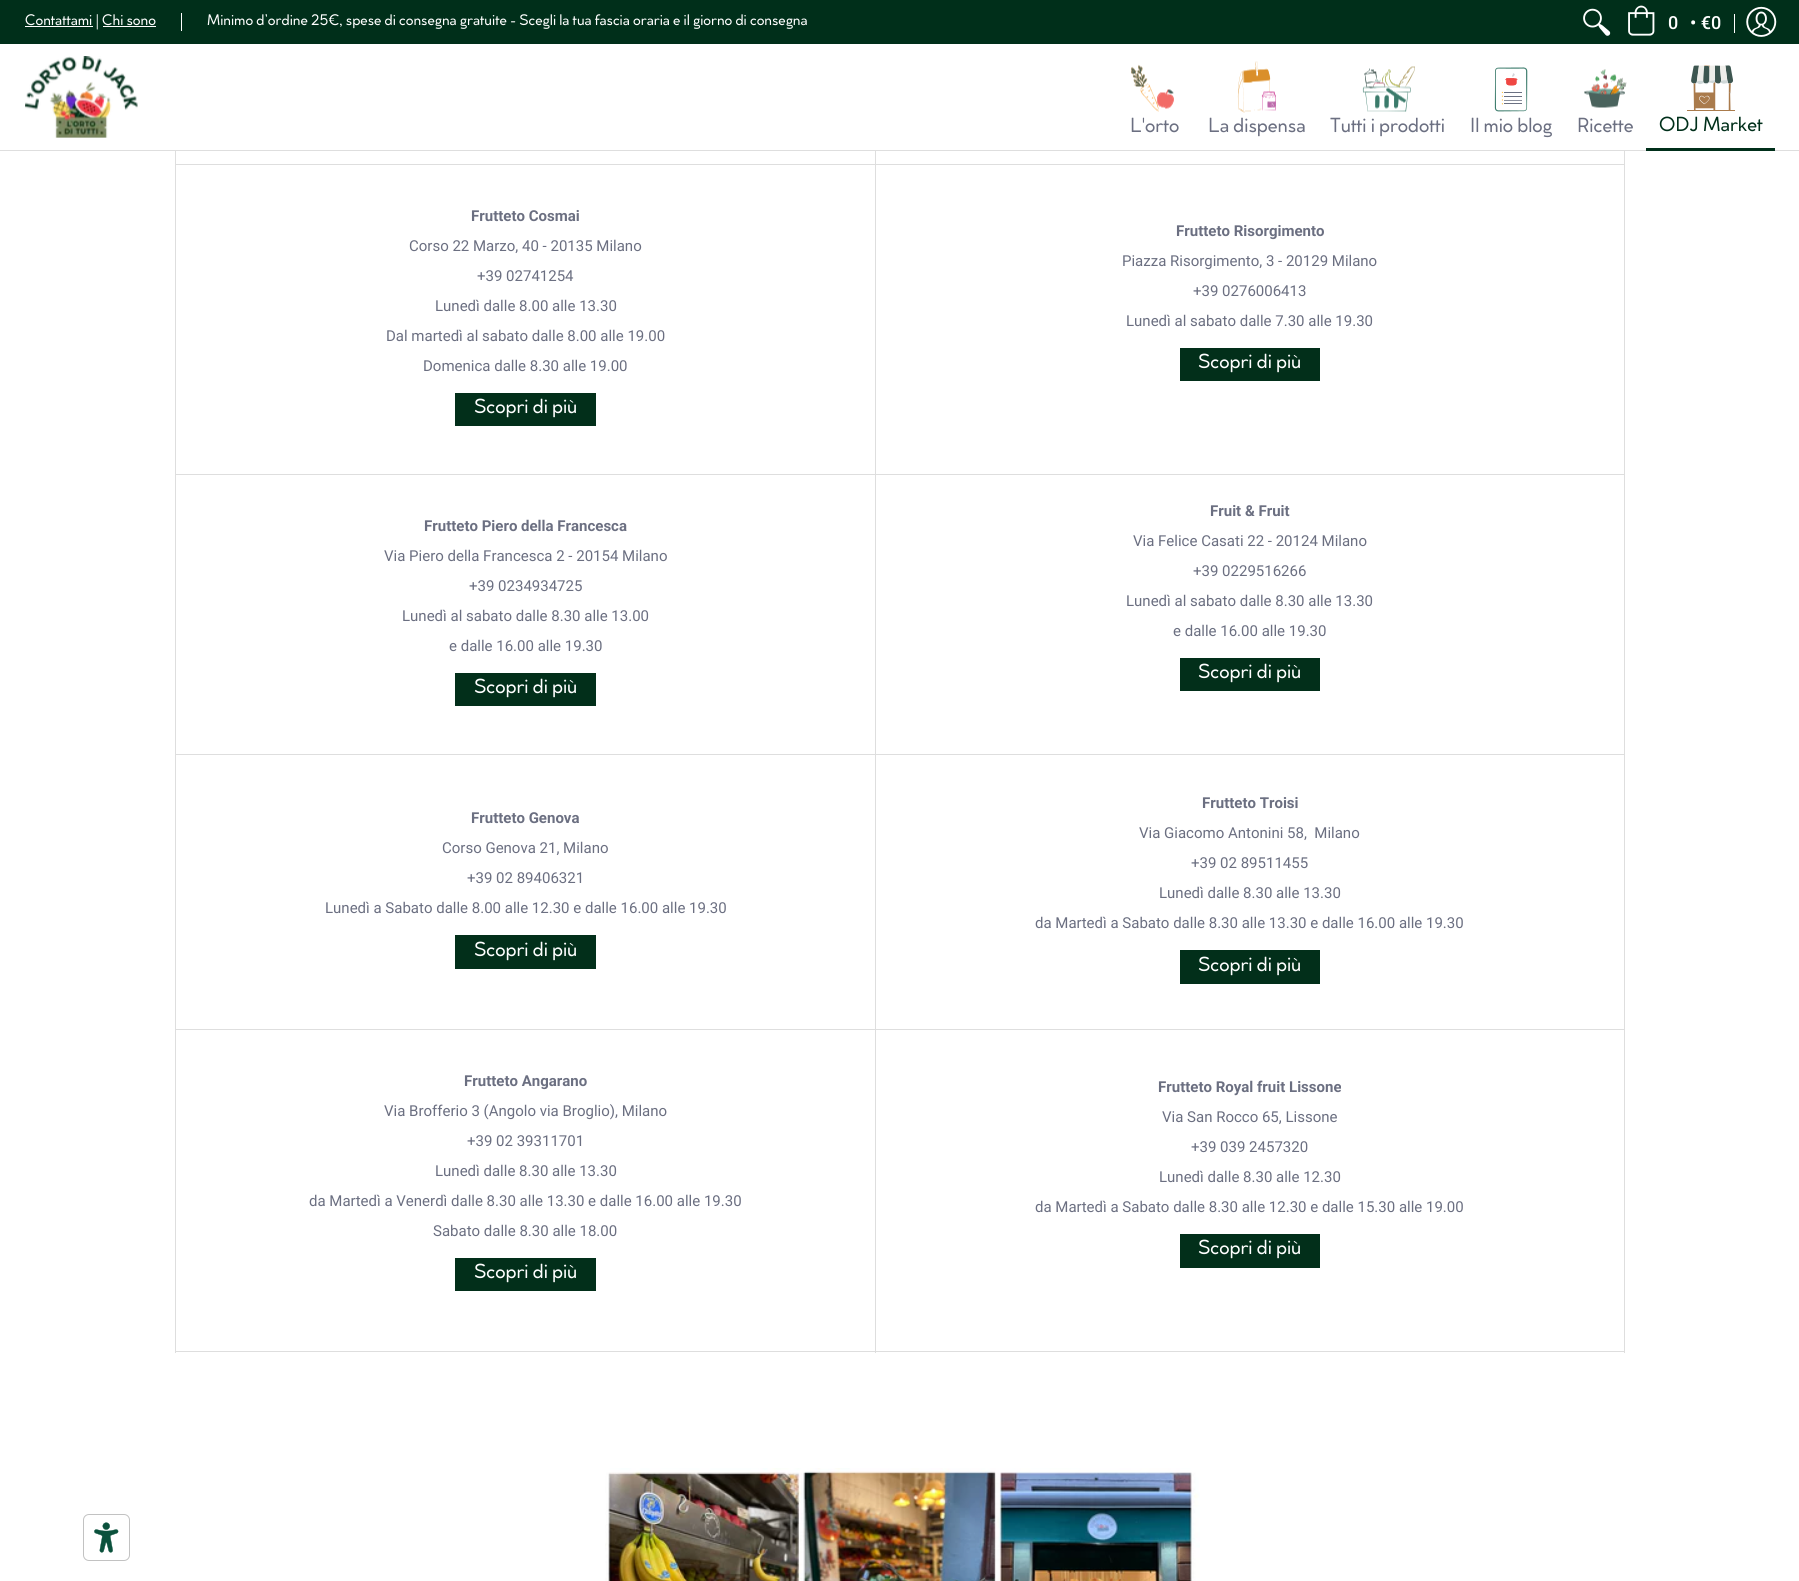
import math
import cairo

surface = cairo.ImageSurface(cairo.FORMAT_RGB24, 1799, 1581)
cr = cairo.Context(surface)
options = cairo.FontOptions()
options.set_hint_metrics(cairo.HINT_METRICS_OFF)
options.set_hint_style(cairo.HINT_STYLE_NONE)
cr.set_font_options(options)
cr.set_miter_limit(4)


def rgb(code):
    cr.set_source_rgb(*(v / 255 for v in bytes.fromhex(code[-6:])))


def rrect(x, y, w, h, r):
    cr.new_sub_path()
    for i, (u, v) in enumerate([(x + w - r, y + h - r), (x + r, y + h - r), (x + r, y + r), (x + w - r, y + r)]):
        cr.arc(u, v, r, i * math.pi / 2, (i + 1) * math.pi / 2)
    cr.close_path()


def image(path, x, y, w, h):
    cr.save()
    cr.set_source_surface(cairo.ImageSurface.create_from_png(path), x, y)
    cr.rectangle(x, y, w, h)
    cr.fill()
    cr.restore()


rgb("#ffffff")
cr.paint()
for x, y, w, h, color in [
    (0, 0, 1799, 44, "#002f1a"),
    (25, 26, 68, 1, "#ffffff"),
    (103, 26, 53, 1, "#ffffff"),
    (181, 13, 1, 18, "#ffffff"),
]:
    rgb(color)
    cr.rectangle(x, y, w, h)
    cr.fill()
image("img/1.png", 1583, 8, 28, 28)
image("img/2.png", 1628, 5, 27, 31)
cr.rectangle(1734, 14, 1, 19)
cr.fill()
image("img/3.png", 1746, 6, 31, 31)
rgb("#dedede")
cr.rectangle(0, 150, 1799, 1)
cr.fill()
image("img/4.png", 25, 56, 113, 82)
image("img/5.png", 1131, 64, 43, 48)
image("img/6.png", 1237, 61, 39, 52)
image("img/7.png", 1362, 66, 53, 46)
image("img/8.png", 1494, 67, 34, 45)
image("img/9.png", 1584, 69, 43, 39)
rgb("#002f1a")
cr.rectangle(1646, 148, 129, 3)
cr.fill()
image("img/10.png", 1687, 65, 48, 46)
for x, y, w, h, color in [
    (875, 164, 750, 1, "#dedede"),
    (875, 474, 750, 1, "#dedede"),
    (875, 754, 750, 1, "#dedede"),
    (875, 1029, 750, 1, "#dedede"),
    (1624, 1029, 1, 324, "#dedede"),
    (875, 1351, 750, 1, "#dedede"),
    (875, 1029, 1, 324, "#dedede"),
    (175, 1029, 701, 1, "#dedede"),
    (875, 754, 1, 276, "#dedede"),
    (175, 754, 701, 1, "#dedede"),
    (875, 474, 1, 281, "#dedede"),
    (175, 474, 701, 1, "#dedede"),
    (875, 164, 1, 311, "#dedede"),
    (175, 164, 701, 1, "#dedede"),
    (875, 151, 1, 14, "#dedede"),
    (175, 1351, 701, 1, "#dedede"),
    (175, 1029, 1, 324, "#dedede"),
    (175, 754, 1, 276, "#dedede"),
    (175, 474, 1, 281, "#dedede"),
    (175, 151, 1, 324, "#dedede"),
    (455, 393, 141, 33, "#022f1a"),
    (1624, 754, 1, 276, "#dedede"),
    (1624, 474, 1, 281, "#dedede"),
    (1624, 151, 1, 324, "#dedede"),
    (1180, 348, 140, 33, "#022f1a"),
    (455, 673, 141, 33, "#022f1a"),
    (1180, 658, 140, 33, "#022f1a"),
    (455, 935, 141, 34, "#022f1a"),
    (1180, 950, 140, 34, "#022f1a"),
    (455, 1258, 141, 33, "#022f1a"),
    (1180, 1234, 140, 34, "#022f1a"),
]:
    rgb(color)
    cr.rectangle(x, y, w, h)
    cr.fill()
image("img/11.png", 605, 1468, 595, 113)
image("img/12.png", 94, 1522, 25, 31)
rrect(83.5, 1514.5, 46, 46, 5.5)
rgb("#c2c2c2")
cr.set_line_width(1)
cr.stroke()
cr.select_font_face("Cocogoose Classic")
cr.set_font_size(15)
rgb("#ffffff")
cr.move_to(25, 25)
cr.show_text("Contattami | Chi sono")
cr.move_to(207, 25)
cr.show_text("Minimo d’ordine 25€, spese di consegna gratuite - Scegli la tua fascia oraria e il giorno di consegna")
cr.select_font_face("Roboto Medium")
cr.set_font_size(18)
cr.move_to(1668, 29)
cr.show_text("0")
cr.move_to(1690, 29)
cr.show_text("• €0")
cr.select_font_face("Cocogoose Classic")
cr.set_font_size(20)
rgb("#6b6f81")
for x, y, s in [
    (1130, 132, "L'orto"),
    (1208, 132, "La dispensa"),
    (1330, 132, "Tutti i prodotti"),
    (1470, 132, "Il mio blog"),
    (1577, 132, "Ricette"),
]:
    cr.move_to(x, y)
    cr.show_text(s)
rgb("#002f1a")
cr.move_to(1659, 131)
cr.show_text("ODJ Market")
cr.select_font_face("Roboto", cairo.FONT_SLANT_NORMAL, cairo.FONT_WEIGHT_BOLD)
cr.set_font_size(15)
rgb("#6b6f81")
cr.move_to(471, 221)
cr.show_text("Frutteto Cosmai")
cr.select_font_face("Roboto")
for x, y, s in [
    (409, 251, "Corso 22 Marzo, 40 - 20135 Milano"),
    (477, 281, "+39 02741254"),
    (435, 311, "Lunedì dalle 8.00 alle 13.30"),
    (386, 341, "Dal martedì al sabato dalle 8.00 alle 19.00"),
    (423, 371, "Domenica dalle 8.30 alle 19.00"),
]:
    cr.move_to(x, y)
    cr.show_text(s)
cr.select_font_face("Cocogoose Classic")
cr.set_font_size(20)
rgb("#ffffff")
cr.move_to(474, 413)
cr.show_text("Scopri di più")
cr.select_font_face("Roboto", cairo.FONT_SLANT_NORMAL, cairo.FONT_WEIGHT_BOLD)
cr.set_font_size(15)
rgb("#6b6f81")
cr.move_to(1176, 236)
cr.show_text("Frutteto Risorgimento")
cr.select_font_face("Roboto")
for x, y, s in [
    (1122, 266, "Piazza Risorgimento, 3 - 20129 Milano"),
    (1193, 296, "+39 0276006413"),
    (1126, 326, "Lunedì al sabato dalle 7.30 alle 19.30"),
]:
    cr.move_to(x, y)
    cr.show_text(s)
cr.select_font_face("Cocogoose Classic")
cr.set_font_size(20)
rgb("#ffffff")
cr.move_to(1198, 368)
cr.show_text("Scopri di più")
cr.select_font_face("Roboto", cairo.FONT_SLANT_NORMAL, cairo.FONT_WEIGHT_BOLD)
cr.set_font_size(15)
rgb("#6b6f81")
cr.move_to(424, 531)
cr.show_text("Frutteto Piero della Francesca")
cr.select_font_face("Roboto")
for x, y, s in [
    (384, 561, "Via Piero della Francesca 2 - 20154 Milano"),
    (469, 591, "+39 0234934725"),
    (402, 621, "Lunedì al sabato dalle 8.30 alle 13.00"),
    (449, 651, "e dalle 16.00 alle 19.30"),
]:
    cr.move_to(x, y)
    cr.show_text(s)
cr.select_font_face("Cocogoose Classic")
cr.set_font_size(20)
rgb("#ffffff")
cr.move_to(474, 693)
cr.show_text("Scopri di più")
cr.select_font_face("Roboto", cairo.FONT_SLANT_NORMAL, cairo.FONT_WEIGHT_BOLD)
cr.set_font_size(15)
rgb("#6b6f81")
cr.move_to(1210, 516)
cr.show_text("Fruit & Fruit")
cr.select_font_face("Roboto")
for x, y, s in [
    (1133, 546, "Via Felice Casati 22 - 20124 Milano"),
    (1193, 576, "+39 0229516266"),
    (1126, 606, "Lunedì al sabato dalle 8.30 alle 13.30"),
    (1173, 636, "e dalle 16.00 alle 19.30"),
]:
    cr.move_to(x, y)
    cr.show_text(s)
cr.select_font_face("Cocogoose Classic")
cr.set_font_size(20)
rgb("#ffffff")
cr.move_to(1198, 678)
cr.show_text("Scopri di più")
cr.select_font_face("Roboto", cairo.FONT_SLANT_NORMAL, cairo.FONT_WEIGHT_BOLD)
cr.set_font_size(15)
rgb("#6b6f81")
cr.move_to(471, 823)
cr.show_text("Frutteto Genova")
cr.select_font_face("Roboto")
for x, y, s in [
    (442, 853, "Corso Genova 21, Milano"),
    (467, 883, "+39 02 89406321"),
    (325, 913, "Lunedì a Sabato dalle 8.00 alle 12.30 e dalle 16.00 alle 19.30"),
]:
    cr.move_to(x, y)
    cr.show_text(s)
cr.select_font_face("Cocogoose Classic")
cr.set_font_size(20)
rgb("#ffffff")
cr.move_to(474, 956)
cr.show_text("Scopri di più")
cr.select_font_face("Roboto", cairo.FONT_SLANT_NORMAL, cairo.FONT_WEIGHT_BOLD)
cr.set_font_size(15)
rgb("#6b6f81")
cr.move_to(1202, 808)
cr.show_text("Frutteto Troisi")
cr.select_font_face("Roboto")
for x, y, s in [
    (1139, 838, "Via Giacomo Antonini 58,  Milano"),
    (1191, 868, "+39 02 89511455"),
    (1159, 898, "Lunedì dalle 8.30 alle 13.30"),
    (1035, 928, "da Martedì a Sabato dalle 8.30 alle 13.30 e dalle 16.00 alle 19.30"),
]:
    cr.move_to(x, y)
    cr.show_text(s)
cr.select_font_face("Cocogoose Classic")
cr.set_font_size(20)
rgb("#ffffff")
cr.move_to(1198, 971)
cr.show_text("Scopri di più")
cr.select_font_face("Roboto", cairo.FONT_SLANT_NORMAL, cairo.FONT_WEIGHT_BOLD)
cr.set_font_size(15)
rgb("#6b6f81")
cr.move_to(464, 1086)
cr.show_text("Frutteto Angarano")
cr.select_font_face("Roboto")
for x, y, s in [
    (384, 1116, "Via Brofferio 3 (Angolo via Broglio), Milano"),
    (467, 1146, "+39 02 39311701"),
    (435, 1176, "Lunedì dalle 8.30 alle 13.30"),
    (309, 1206, "da Martedì a Venerdì dalle 8.30 alle 13.30 e dalle 16.00 alle 19.30"),
    (433, 1236, "Sabato dalle 8.30 alle 18.00"),
]:
    cr.move_to(x, y)
    cr.show_text(s)
cr.select_font_face("Cocogoose Classic")
cr.set_font_size(20)
rgb("#ffffff")
cr.move_to(474, 1278)
cr.show_text("Scopri di più")
cr.select_font_face("Roboto", cairo.FONT_SLANT_NORMAL, cairo.FONT_WEIGHT_BOLD)
cr.set_font_size(15)
rgb("#6b6f81")
cr.move_to(1158, 1092)
cr.show_text("Frutteto Royal fruit Lissone")
cr.select_font_face("Roboto")
for x, y, s in [
    (1162, 1122, "Via San Rocco 65, Lissone"),
    (1191, 1152, "+39 039 2457320"),
    (1159, 1182, "Lunedì dalle 8.30 alle 12.30"),
    (1035, 1212, "da Martedì a Sabato dalle 8.30 alle 12.30 e dalle 15.30 alle 19.00"),
]:
    cr.move_to(x, y)
    cr.show_text(s)
cr.select_font_face("Cocogoose Classic")
cr.set_font_size(20)
rgb("#ffffff")
cr.move_to(1198, 1254)
cr.show_text("Scopri di più")
surface.write_to_png("page.png")
